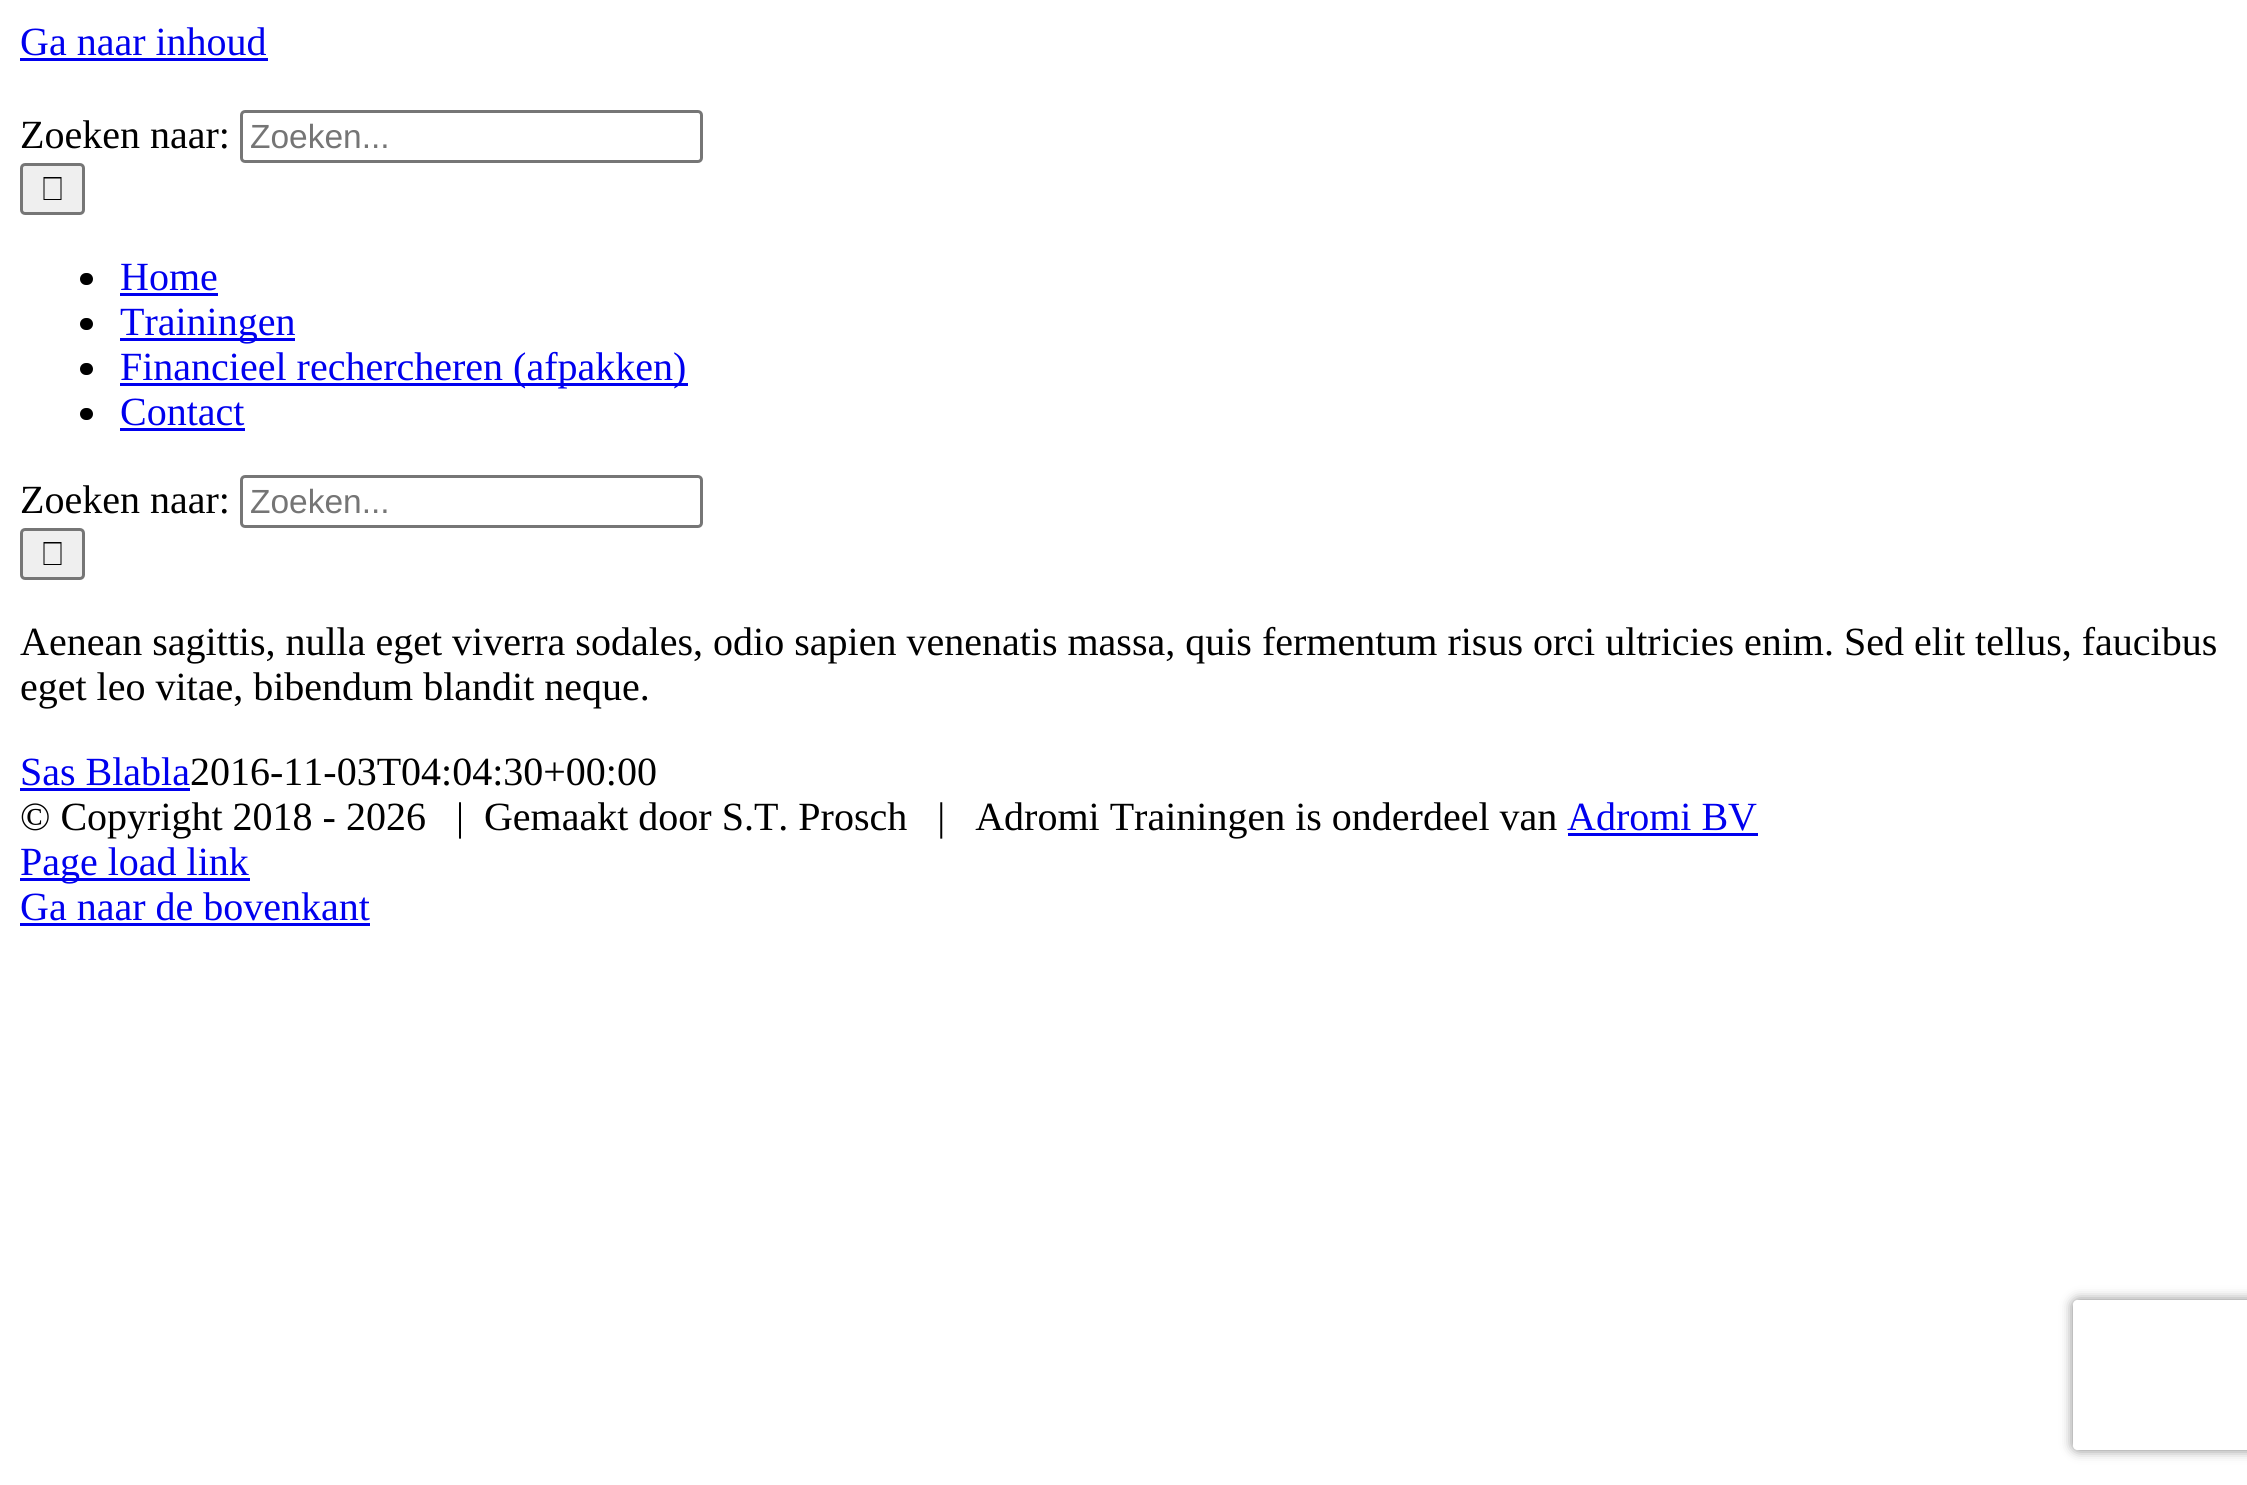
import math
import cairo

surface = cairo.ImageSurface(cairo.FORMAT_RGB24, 2247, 1485)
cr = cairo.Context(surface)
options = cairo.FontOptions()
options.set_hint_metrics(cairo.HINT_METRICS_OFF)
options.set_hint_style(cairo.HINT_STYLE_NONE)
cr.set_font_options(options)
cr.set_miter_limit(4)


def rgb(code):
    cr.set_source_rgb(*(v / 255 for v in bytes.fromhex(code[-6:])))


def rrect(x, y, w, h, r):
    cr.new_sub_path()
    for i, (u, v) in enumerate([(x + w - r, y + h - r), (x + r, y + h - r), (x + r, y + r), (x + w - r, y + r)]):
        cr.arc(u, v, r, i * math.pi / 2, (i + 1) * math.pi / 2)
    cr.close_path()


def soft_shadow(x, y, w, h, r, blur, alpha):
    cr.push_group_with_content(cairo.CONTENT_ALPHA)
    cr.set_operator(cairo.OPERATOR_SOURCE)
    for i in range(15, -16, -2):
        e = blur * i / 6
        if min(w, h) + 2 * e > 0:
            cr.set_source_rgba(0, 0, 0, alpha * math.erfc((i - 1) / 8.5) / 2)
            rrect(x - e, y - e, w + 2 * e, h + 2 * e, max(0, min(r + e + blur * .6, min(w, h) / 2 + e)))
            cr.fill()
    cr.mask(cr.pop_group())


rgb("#ffffff")
cr.paint()
rgb("#0000ee")
cr.rectangle(20, 58, 248, 3)
cr.fill()
rrect(241.5, 111.5, 460, 50, 3.5)
rgb("#767676")
cr.set_line_width(3)
cr.stroke()
rgb("#efefef")
rrect(21.5, 164.5, 62, 49, 3.5)
cr.fill_preserve()
rgb("#767676")
cr.stroke()
rgb("#000000")
cr.new_path()
cr.move_to(43.5, 177)
cr.line_to(61.5, 177)
cr.line_to(61.5, 200)
cr.line_to(43.5, 200)
cr.close_path()
cr.move_to(44.5, 178.5)
cr.line_to(44.5, 199)
cr.line_to(60.5, 199)
cr.line_to(60.5, 178.5)
cr.close_path()
cr.fill()
rrect(80, 273, 13, 12, 6)
cr.fill()
rgb("#0000ee")
cr.rectangle(120, 293, 98, 3)
cr.fill()
rgb("#000000")
rrect(80, 318, 13, 12, 6)
cr.fill()
rgb("#0000ee")
cr.rectangle(120, 338, 175, 3)
cr.fill()
rgb("#000000")
rrect(80, 363, 13, 12, 6)
cr.fill()
rgb("#0000ee")
cr.rectangle(120, 383, 568, 3)
cr.fill()
rgb("#000000")
rrect(80, 408, 13, 12, 6)
cr.fill()
rgb("#0000ee")
cr.rectangle(120, 428, 125, 3)
cr.fill()
rrect(241.5, 476.5, 460, 50, 3.5)
rgb("#767676")
cr.stroke()
rgb("#efefef")
rrect(21.5, 529.5, 62, 49, 3.5)
cr.fill_preserve()
rgb("#767676")
cr.stroke()
rgb("#000000")
cr.new_path()
cr.move_to(43.5, 542)
cr.line_to(61.5, 542)
cr.line_to(61.5, 565)
cr.line_to(43.5, 565)
cr.close_path()
cr.move_to(44.5, 543.5)
cr.line_to(44.5, 564)
cr.line_to(60.5, 564)
cr.line_to(60.5, 543.5)
cr.close_path()
cr.fill()
for x, y, w, h, color in [
    (20, 788, 170, 3, "#0000ee"),
    (1568, 833, 190, 3, "#0000ee"),
    (20, 878, 230, 3, "#0000ee"),
    (20, 923, 350, 3, "#0000ee"),
]:
    rgb(color)
    cr.rectangle(x, y, w, h)
    cr.fill()
cr.save()
cr.set_fill_rule(cairo.FILL_RULE_EVEN_ODD)
cr.new_path()
cr.move_to(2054, 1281)
cr.line_to(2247, 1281)
cr.line_to(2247, 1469)
cr.line_to(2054, 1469)
cr.close_path()
cr.move_to(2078, 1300)
cr.line_to(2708, 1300)
cr.curve_to(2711, 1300, 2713, 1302, 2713, 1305)
cr.line_to(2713, 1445)
cr.curve_to(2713, 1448, 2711, 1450, 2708, 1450)
cr.line_to(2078, 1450)
cr.curve_to(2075, 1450, 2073, 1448, 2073, 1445)
cr.line_to(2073, 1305)
cr.curve_to(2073, 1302, 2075, 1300, 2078, 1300)
cr.close_path()
cr.clip()
rgb("#808080")
soft_shadow(2073, 1300, 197, 150, 5, 6, 1)
cr.restore()
cr.select_font_face("Liberation Serif")
cr.set_font_size(40)
cr.move_to(20, 55)
cr.show_text("Ga naar inhoud")
rgb("#000000")
cr.move_to(20, 148)
cr.show_text("Zoeken naar:")
cr.select_font_face("Liberation Sans")
cr.set_font_size(33.5)
rgb("#757575")
cr.move_to(250, 148)
cr.show_text("Zoeken...")
cr.select_font_face("Liberation Serif")
cr.set_font_size(40)
rgb("#0000ee")
for x, y, s in [
    (120, 290, "Home"),
    (120, 335, "Trainingen"),
    (120, 380, "Financieel rechercheren (afpakken)"),
    (120, 425, "Contact"),
]:
    cr.move_to(x, y)
    cr.show_text(s)
rgb("#000000")
cr.move_to(20, 513)
cr.show_text("Zoeken naar:")
cr.select_font_face("Liberation Sans")
cr.set_font_size(33.5)
rgb("#757575")
cr.move_to(250, 513)
cr.show_text("Zoeken...")
cr.select_font_face("Liberation Serif")
cr.set_font_size(40)
rgb("#000000")
cr.move_to(20, 655)
cr.show_text("Aenean sagittis, nulla eget viverra sodales, odio sapien venenatis massa, quis fermentum risus orci ultricies enim. Sed elit tellus, faucibus")
cr.move_to(20, 700)
cr.show_text("eget leo vitae, bibendum blandit neque.")
rgb("#0000ee")
cr.move_to(20, 785)
cr.show_text("Sas Blabla")
rgb("#000000")
cr.move_to(190, 785)
cr.show_text("2016-11-03T04:04:30+00:00")
cr.move_to(20, 830)
cr.show_text("© Copyright 2018 - 2026   |  Gemaakt door S.T. Prosch   |   Adromi Trainingen is onderdeel van")
rgb("#0000ee")
for x, y, s in [
    (1567, 830, "Adromi BV"),
    (20, 875, "Page load link"),
    (20, 920, "Ga naar de bovenkant"),
]:
    cr.move_to(x, y)
    cr.show_text(s)
surface.write_to_png("page.png")
